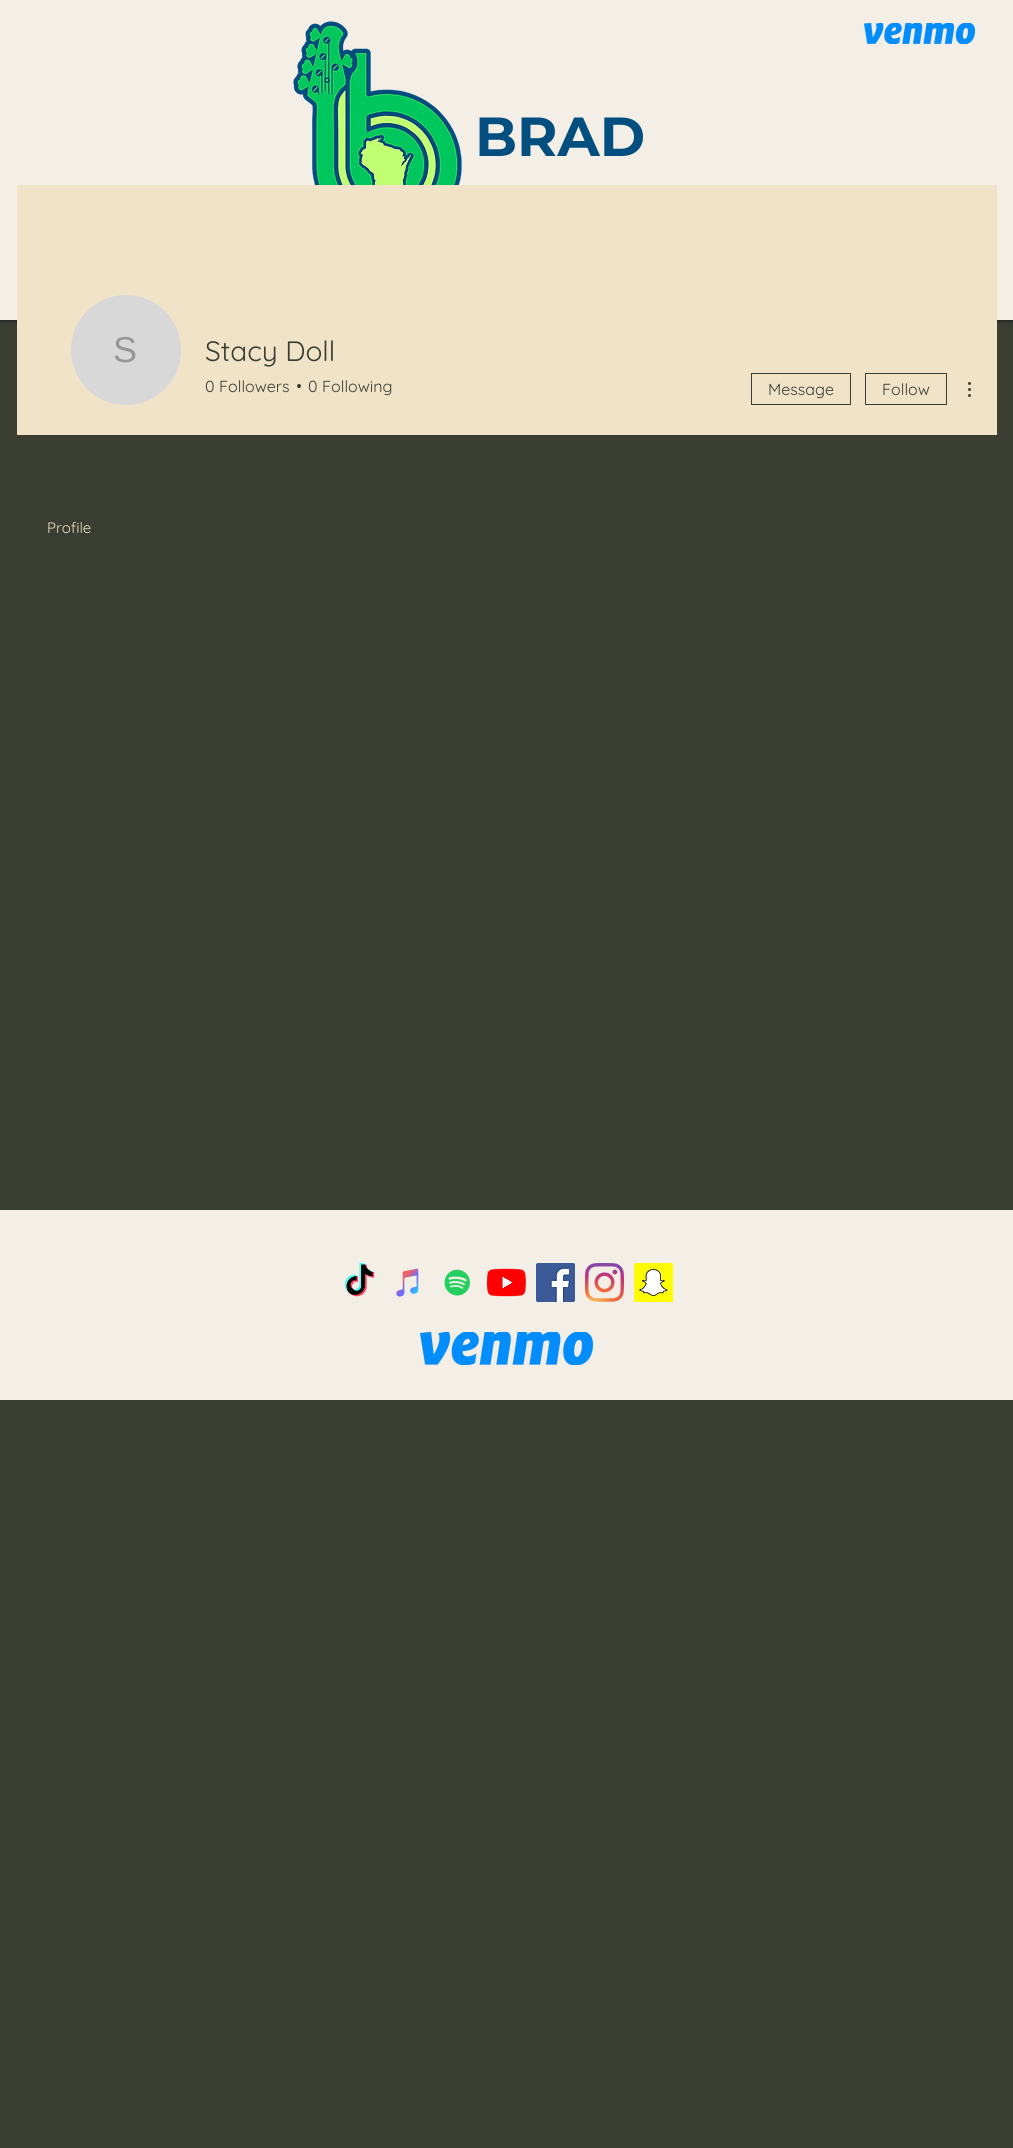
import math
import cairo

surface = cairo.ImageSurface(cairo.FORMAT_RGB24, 1013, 2148)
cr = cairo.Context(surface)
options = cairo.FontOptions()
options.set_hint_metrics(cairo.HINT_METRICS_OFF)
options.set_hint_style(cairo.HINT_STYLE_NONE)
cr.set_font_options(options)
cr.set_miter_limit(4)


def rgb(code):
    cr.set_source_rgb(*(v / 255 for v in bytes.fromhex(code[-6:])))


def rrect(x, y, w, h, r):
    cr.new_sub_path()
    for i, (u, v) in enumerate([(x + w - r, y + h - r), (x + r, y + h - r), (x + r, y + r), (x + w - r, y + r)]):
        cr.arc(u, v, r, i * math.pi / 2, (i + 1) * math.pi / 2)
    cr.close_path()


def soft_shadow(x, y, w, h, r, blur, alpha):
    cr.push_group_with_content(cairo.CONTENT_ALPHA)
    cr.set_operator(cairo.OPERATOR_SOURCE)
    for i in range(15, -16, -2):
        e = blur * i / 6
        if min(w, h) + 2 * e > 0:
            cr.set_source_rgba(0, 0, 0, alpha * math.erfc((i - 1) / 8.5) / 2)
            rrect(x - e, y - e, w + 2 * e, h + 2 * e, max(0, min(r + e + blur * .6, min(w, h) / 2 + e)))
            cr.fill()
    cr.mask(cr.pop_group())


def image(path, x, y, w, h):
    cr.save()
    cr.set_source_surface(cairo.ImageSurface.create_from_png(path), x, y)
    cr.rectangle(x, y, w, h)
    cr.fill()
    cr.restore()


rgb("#393d32")
cr.paint()
rgb("#000000")
soft_shadow(0, 0, 1013, 320, 0, 2.5, 0.7)
rgb("#f3efe7")
cr.rectangle(0, 0, 1013, 320)
cr.fill()
image("img/1.png", 293, 21, 169, 164)
image("img/2.png", 864, 23, 111, 21)
rgb("#f1e3c8")
cr.rectangle(17, 185, 980, 250)
cr.fill()
rgb("#d8d8d8")
cr.arc(126, 350, 55, 0, 2 * math.pi)
cr.fill()
rgb("#393d32")
cr.arc(299, 386, 2, 0, 2 * math.pi)
cr.fill()
cr.rectangle(751.5, 373.5, 99, 31)
cr.set_line_width(1)
cr.stroke()
cr.rectangle(865.5, 373.5, 81, 31)
cr.stroke()
image("img/3.png", 968, 382, 3, 15)
rgb("#f3efe7")
cr.rectangle(0, 1210, 1013, 190)
cr.fill()
image("img/4.png", 344, 1263, 31, 34)
image("img/5.png", 396, 1268, 23, 29)
image("img/6.png", 444, 1269, 27, 27)
image("img/7.png", 487, 1268, 39, 29)
image("img/8.png", 536, 1263, 39, 39)
image("img/9.png", 585, 1263, 39, 39)
image("img/10.png", 634, 1263, 39, 39)
image("img/11.png", 420, 1332, 173, 33)
cr.select_font_face("Montserrat", cairo.FONT_SLANT_NORMAL, cairo.FONT_WEIGHT_BOLD)
cr.set_font_size(55)
rgb("#024e7e")
cr.move_to(475, 156)
cr.show_text("BRAD")
cr.select_font_face("Liberation Sans")
cr.set_font_size(36)
rgb("#979797")
cr.move_to(113, 362)
cr.show_text("S")
cr.select_font_face("Quicksand")
cr.set_font_size(28)
rgb("#393d32")
cr.move_to(205, 361)
cr.show_text("Stacy Doll")
cr.set_font_size(16)
for x, y, s in [
    (205, 392, "0"),
    (219, 392, "Followers"),
    (308, 392, "0"),
    (322, 392, "Following"),
    (768, 395, "Message"),
    (882, 395, "Follow"),
]:
    cr.move_to(x, y)
    cr.show_text(s)
cr.set_font_size(15)
rgb("#f1e3c8")
cr.move_to(47, 533)
cr.show_text("Profile")
surface.write_to_png("page.png")
